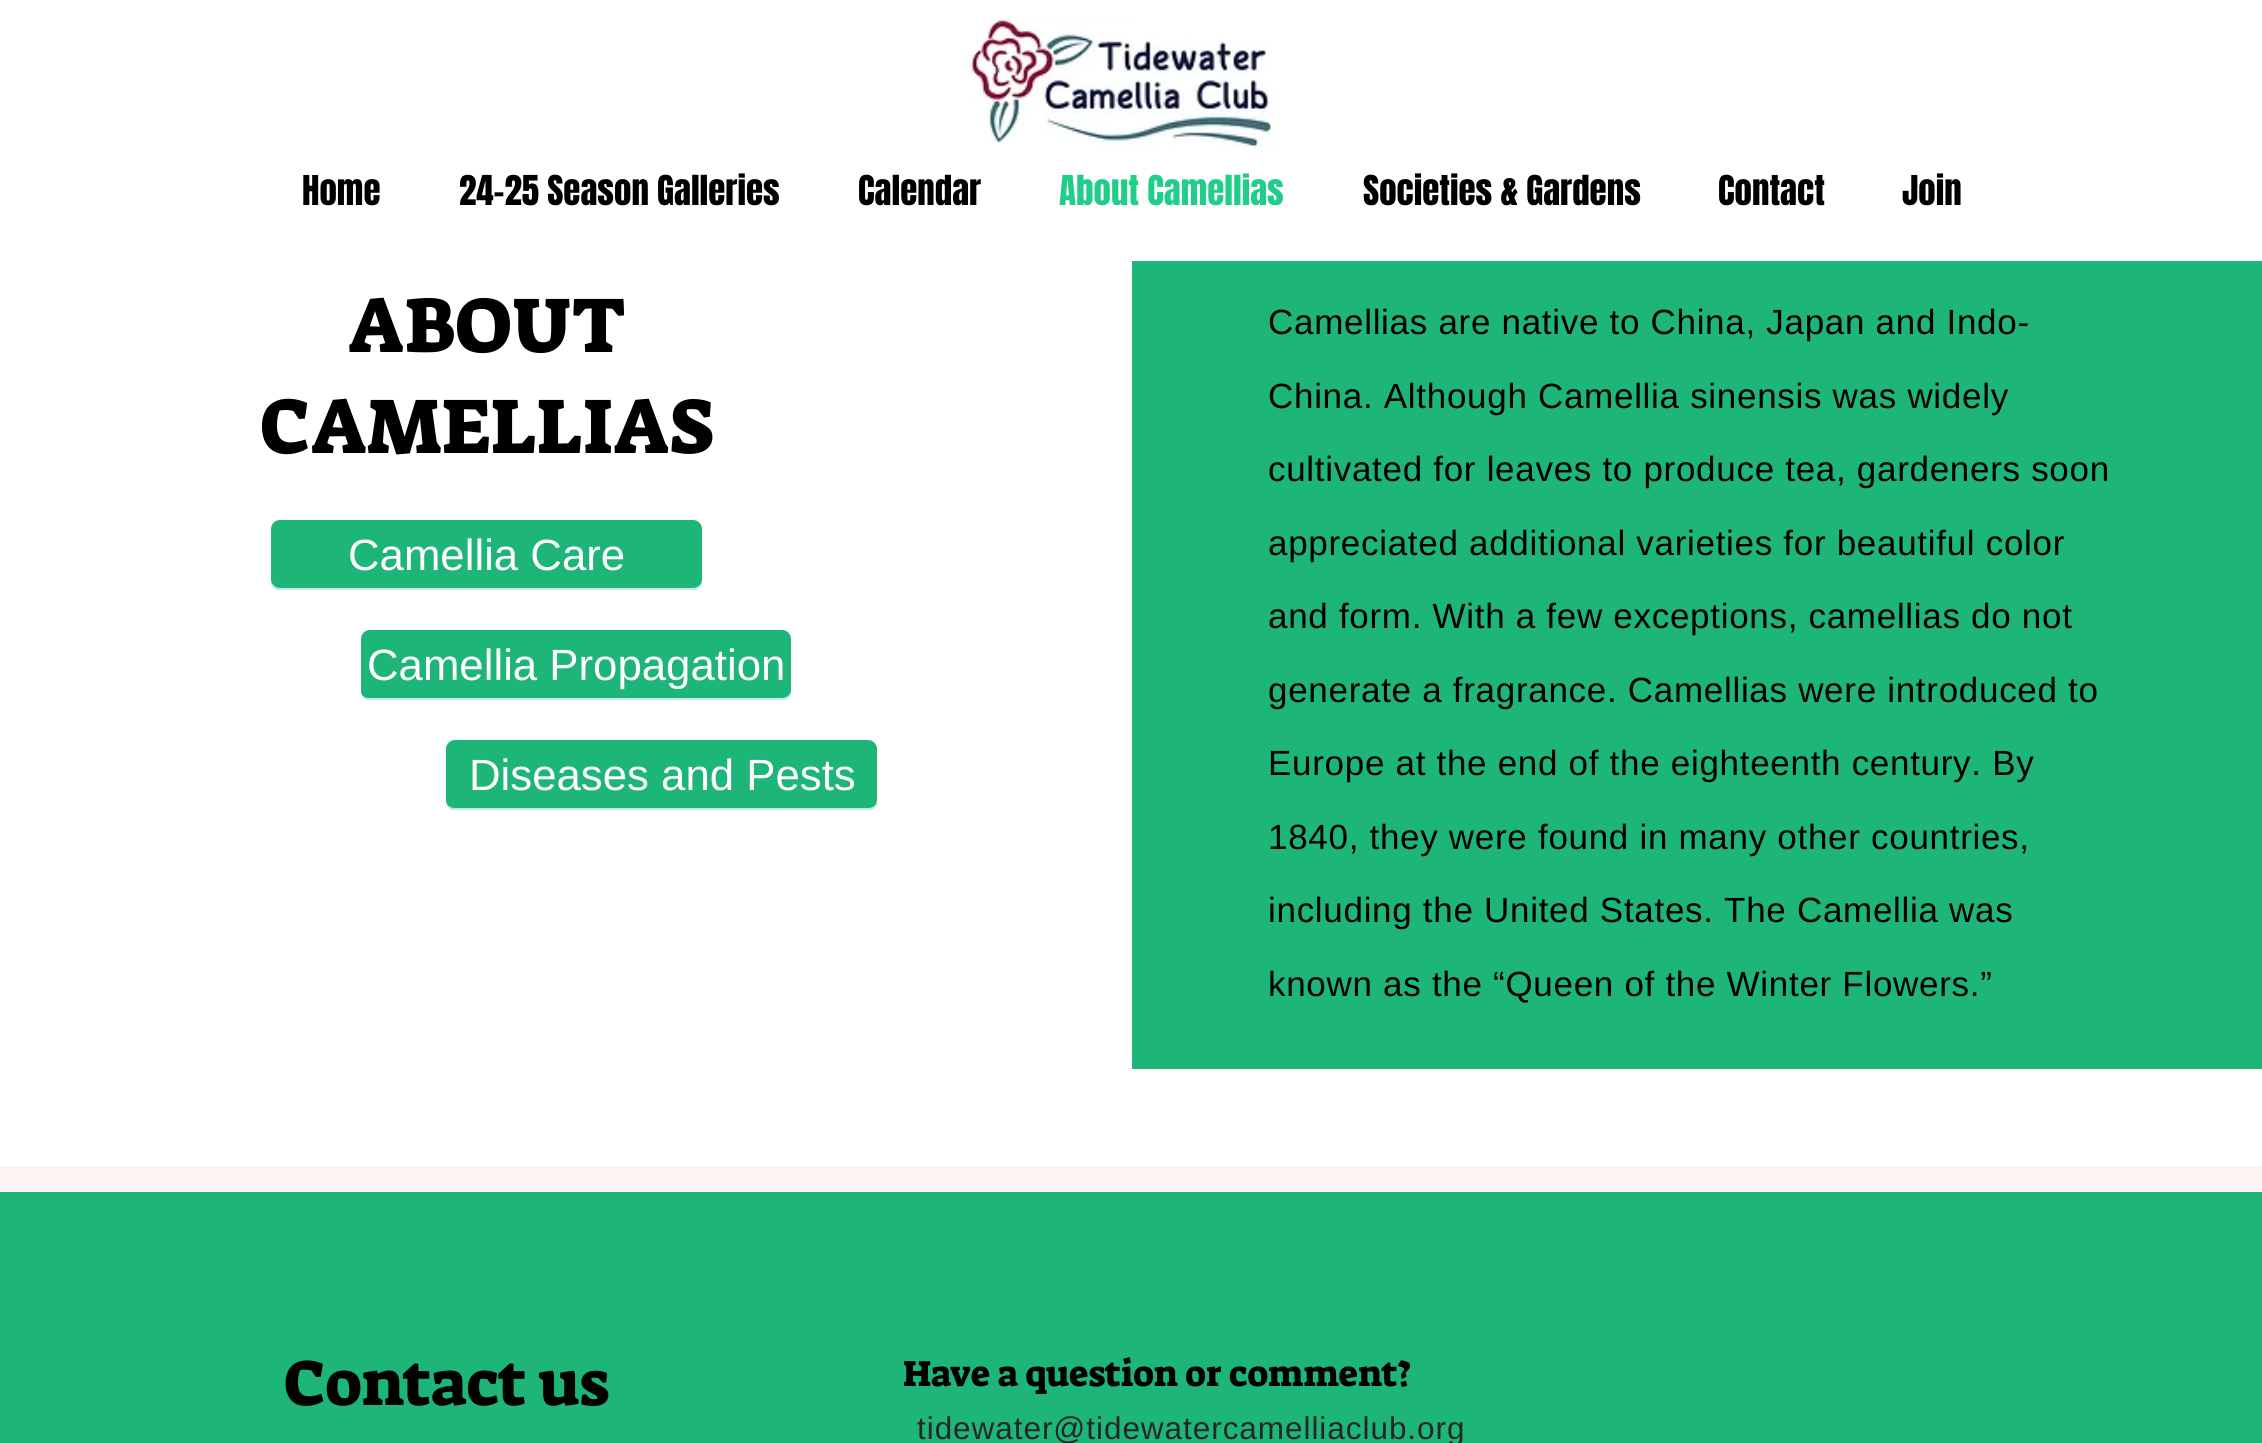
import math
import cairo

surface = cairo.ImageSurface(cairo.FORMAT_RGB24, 2262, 1443)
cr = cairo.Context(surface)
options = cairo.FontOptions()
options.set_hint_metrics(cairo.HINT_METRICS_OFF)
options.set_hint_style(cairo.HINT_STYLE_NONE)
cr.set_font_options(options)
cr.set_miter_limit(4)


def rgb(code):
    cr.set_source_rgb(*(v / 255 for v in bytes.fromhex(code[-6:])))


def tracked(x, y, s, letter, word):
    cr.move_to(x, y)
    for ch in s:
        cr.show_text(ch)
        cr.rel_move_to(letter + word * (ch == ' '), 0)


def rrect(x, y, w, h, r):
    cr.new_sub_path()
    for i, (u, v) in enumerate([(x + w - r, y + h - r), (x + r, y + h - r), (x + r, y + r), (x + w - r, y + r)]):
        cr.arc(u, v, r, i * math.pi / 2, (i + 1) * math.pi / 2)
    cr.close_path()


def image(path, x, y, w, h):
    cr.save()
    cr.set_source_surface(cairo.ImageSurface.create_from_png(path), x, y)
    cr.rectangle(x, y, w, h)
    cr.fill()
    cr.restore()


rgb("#ffffff")
cr.paint()
image("img/1.png", 961, 16, 315, 133)
rgb("#1db578")
rrect(271, 520, 431, 70, 9)
cr.fill()
cr.set_source_rgba(1, 1, 1, 0.75)
cr.new_path()
cr.move_to(271, 579)
cr.line_to(271, 581)
cr.curve_to(271, 586, 275, 590, 280, 590)
cr.line_to(693, 590)
cr.curve_to(698, 590, 702, 586, 702, 581)
cr.line_to(702, 579)
cr.curve_to(702, 584, 698, 588, 693, 588)
cr.line_to(280, 588)
cr.curve_to(275, 588, 271, 584, 271, 579)
cr.close_path()
cr.fill()
rgb("#1db578")
rrect(361, 630, 430, 70, 9)
cr.fill()
cr.set_source_rgba(1, 1, 1, 0.75)
cr.new_path()
cr.move_to(362, 695)
cr.curve_to(363, 698, 366, 700, 370, 700)
cr.line_to(782, 700)
cr.curve_to(788, 700, 791, 695, 791, 690)
cr.curve_to(791, 694, 787, 698, 782, 698)
cr.line_to(369, 698)
cr.curve_to(366, 698, 363, 697, 362, 695)
cr.close_path()
cr.fill()
rgb("#1db578")
rrect(446, 740, 431, 70, 9)
cr.fill()
cr.set_source_rgba(1, 1, 1, 0.75)
cr.new_path()
cr.move_to(446, 800)
cr.line_to(446, 801)
cr.curve_to(446, 806, 450, 810, 455, 810)
cr.line_to(868, 810)
cr.curve_to(873, 810, 877, 806, 877, 801)
cr.line_to(877, 800)
cr.curve_to(877, 805, 873, 808, 868, 808)
cr.line_to(455, 808)
cr.curve_to(450, 808, 446, 805, 446, 800)
cr.close_path()
cr.fill()
for x, y, w, h, color in [
    (1132, 261, 1130, 808, "#1db578"),
    (0, 1166, 2262, 26, "#fef3f3"),
    (0, 1192, 2262, 251, "#1db578"),
]:
    rgb(color)
    cr.rectangle(x, y, w, h)
    cr.fill()
cr.select_font_face("Anton")
cr.set_font_size(35)
rgb("#000000")
for x, y, s in [
    (302, 205, "Home"),
    (459, 205, "24-25 Season Galleries"),
    (858, 205, "Calendar"),
]:
    cr.move_to(x, y)
    cr.show_text(s)
rgb("#20ce88")
cr.move_to(1059, 205)
cr.show_text("About Camellias")
rgb("#000000")
for x, y, s in [
    (1363, 205, "Societies & Gardens"),
    (1718, 205, "Contact"),
    (1902, 205, "Join"),
]:
    cr.move_to(x, y)
    cr.show_text(s)
cr.select_font_face("Suez One")
cr.set_font_size(78.75)
cr.move_to(348, 352)
cr.show_text("ABOUT")
cr.move_to(260, 453)
cr.show_text("CAMELLIAS")
cr.select_font_face("Liberation Sans")
cr.set_font_size(43.75)
rgb("#ffffff")
for x, y, s in [
    (348, 570, "Camellia Care"),
    (367, 680, "Camellia Propagation"),
    (469, 790, "Diseases and Pests"),
]:
    cr.move_to(x, y)
    cr.show_text(s)
cr.set_font_size(35)
rgb("#000000")
for x, y, s in [
    (1268, 334, "Camellias are native to China, Japan and Indo-"),
    (1268, 408, "China. Although Camellia sinensis was widely"),
    (1268, 481, "cultivated for leaves to produce tea, gardeners soon"),
    (1268, 555, "appreciated additional varieties for beautiful color"),
    (1268, 628, "and form. With a few exceptions, camellias do not"),
    (1268, 702, "generate a fragrance. Camellias were introduced to"),
    (1268, 775, "Europe at the end of the eighteenth century. By"),
    (1268, 849, "1840, they were found in many other countries,"),
    (1268, 922, "including the United States. The Camellia was"),
    (1268, 996, "known as the “Queen of the Winter Flowers.”"),
]:
    tracked(x, y, s, 0.7, 0)
cr.select_font_face("Suez One")
cr.set_font_size(64.75)
cr.move_to(284, 1405)
cr.show_text("Contact us")
cr.set_font_size(36.75)
cr.move_to(903, 1386)
cr.show_text("Have a question or comment?")
cr.select_font_face("Liberation Sans")
cr.set_font_size(31.5)
rgb("#262626")
tracked(917, 1439, "tidewater@tidewatercamelliaclub.org", 0.95, 0)
surface.write_to_png("page.png")
